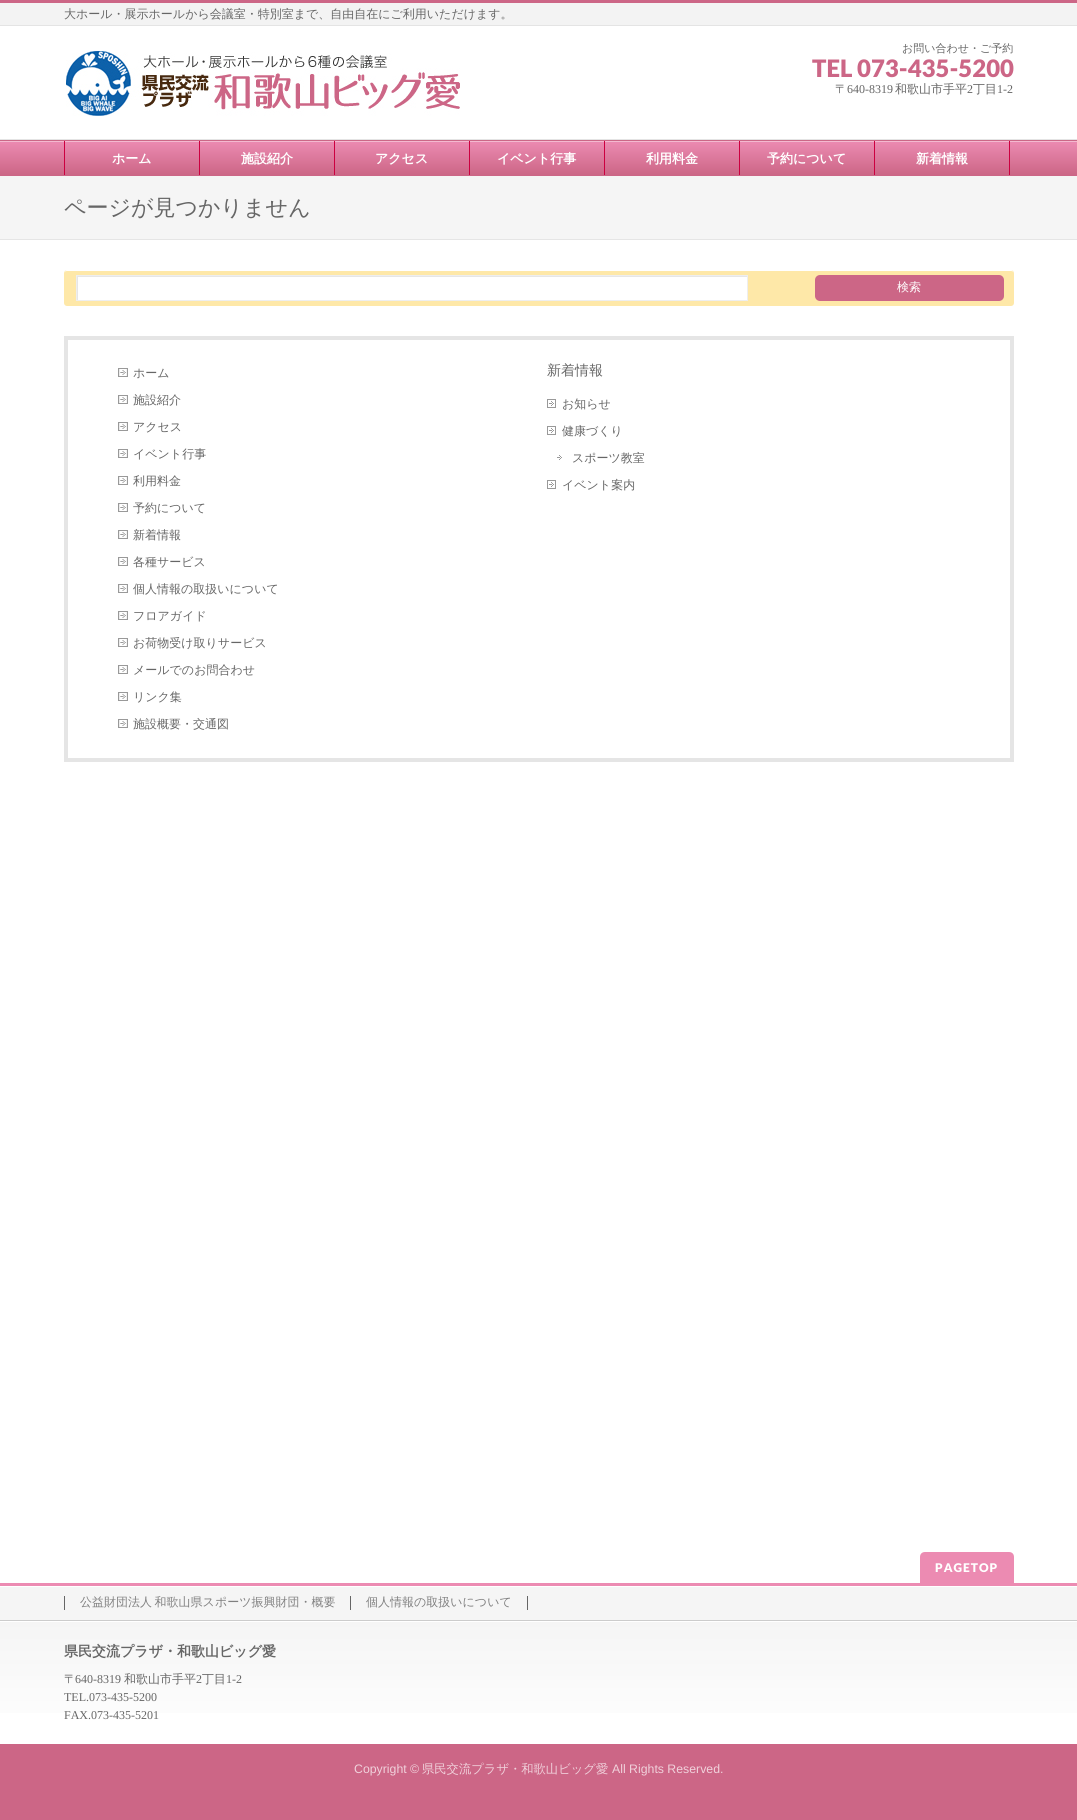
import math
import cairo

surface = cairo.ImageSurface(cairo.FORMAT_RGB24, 1077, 1820)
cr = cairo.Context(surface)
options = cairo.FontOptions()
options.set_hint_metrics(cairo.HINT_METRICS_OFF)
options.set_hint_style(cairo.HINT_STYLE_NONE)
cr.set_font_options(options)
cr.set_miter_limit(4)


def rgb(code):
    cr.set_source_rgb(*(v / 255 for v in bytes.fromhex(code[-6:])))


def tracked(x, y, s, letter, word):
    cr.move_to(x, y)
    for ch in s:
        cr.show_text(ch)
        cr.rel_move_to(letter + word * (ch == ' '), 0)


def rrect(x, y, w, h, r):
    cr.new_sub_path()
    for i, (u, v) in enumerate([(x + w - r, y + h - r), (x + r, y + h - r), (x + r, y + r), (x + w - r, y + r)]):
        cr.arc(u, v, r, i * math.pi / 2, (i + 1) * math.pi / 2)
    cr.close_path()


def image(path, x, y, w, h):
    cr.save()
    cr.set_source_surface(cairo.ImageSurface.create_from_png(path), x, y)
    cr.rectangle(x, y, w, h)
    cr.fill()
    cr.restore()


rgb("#ffffff")
cr.paint()
for x, y, w, h, color in [
    (0, 3, 1077, 22, "#f3f3f3"),
    (0, 0, 1077, 3, "#cc6686"),
    (0, 25, 1077, 1, "#e4e4e4"),
    (0, 139, 1077, 1, "#e4e4e4"),
]:
    rgb(color)
    cr.rectangle(x, y, w, h)
    cr.fill()
image("img/1.png", 66, 51, 394, 65)
gradient = cairo.LinearGradient(539, 107, 539, 141)
gradient.add_color_stop_rgba(0, 0.925, 0.545, 0.698, 1)
gradient.add_color_stop_rgba(1, 0.8, 0.4, 0.525, 1)
cr.set_source(gradient)
cr.rectangle(0, 140, 1077, 1)
cr.fill()
gradient = cairo.LinearGradient(539, 141, 539, 175)
gradient.add_color_stop_rgba(0, 0.925, 0.545, 0.698, 1)
gradient.add_color_stop_rgba(1, 0.8, 0.4, 0.525, 1)
cr.set_source(gradient)
cr.rectangle(0, 142, 1077, 33)
cr.fill()
for x, y, w, h, color in [
    (0, 141, 1077, 1, "#f4b9d0"),
    (0, 175, 1077, 1, "#cc6686"),
    (64, 141, 1, 34, "#cc0040"),
    (199, 141, 1, 34, "#cc0040"),
    (334, 141, 1, 34, "#cc0040"),
    (469, 141, 1, 34, "#cc0040"),
    (604, 141, 1, 34, "#cc0040"),
    (739, 141, 1, 34, "#cc0040"),
    (874, 141, 1, 34, "#cc0040"),
    (1009, 141, 1, 34, "#cc0040"),
    (0, 176, 1077, 63, "#f5f5f5"),
    (0, 239, 1077, 1, "#e5e5e5"),
]:
    rgb(color)
    cr.rectangle(x, y, w, h)
    cr.fill()
rgb("#fee8a8")
rrect(64, 270, 950, 36, 3)
cr.fill()
rgb("#ffffff")
cr.new_path()
cr.move_to(67, 271)
cr.line_to(1011, 271)
cr.curve_to(1013, 271, 1014, 272, 1014, 274)
cr.curve_to(1014, 272, 1013, 270, 1011, 270)
cr.line_to(67, 270)
cr.curve_to(65, 270, 64, 272, 64, 274)
cr.curve_to(64, 272, 65, 271, 67, 271)
cr.close_path()
cr.fill()
cr.rectangle(78, 277, 669, 23)
cr.fill()
cr.save()
cr.rectangle(77, 276, 670, 24)
cr.clip()
rgb("#e6e6e6")
cr.set_fill_rule(cairo.FILL_RULE_EVEN_ODD)
cr.new_path()
cr.move_to(67, 270)
cr.line_to(846, 270)
cr.line_to(846, 306)
cr.line_to(67, 306)
cr.curve_to(65, 306, 64, 305, 64, 303)
cr.line_to(64, 273)
cr.curve_to(64, 271, 65, 270, 67, 270)
cr.close_path()
cr.move_to(78, 277)
cr.line_to(78, 301)
cr.line_to(748, 301)
cr.line_to(748, 277)
cr.close_path()
cr.fill()
cr.restore()
cr.rectangle(76.5, 275.5, 671, 25)
rgb("#eeeeee")
cr.set_line_width(1)
cr.stroke()
rgb("#cc6686")
rrect(815, 275, 189, 26, 5)
cr.fill()
cr.rectangle(66, 338, 946, 422)
rgb("#e5e5e5")
cr.set_line_width(4)
cr.stroke()
image("img/2.png", 118, 368, 10, 9)
image("img/2.png", 118, 395, 10, 9)
image("img/2.png", 118, 422, 10, 9)
image("img/2.png", 118, 449, 10, 9)
image("img/2.png", 118, 476, 10, 9)
image("img/2.png", 118, 503, 10, 9)
image("img/2.png", 118, 530, 10, 9)
image("img/2.png", 118, 557, 10, 9)
image("img/2.png", 118, 584, 10, 9)
image("img/2.png", 118, 611, 10, 9)
image("img/2.png", 118, 638, 10, 9)
image("img/2.png", 118, 665, 10, 9)
image("img/2.png", 118, 692, 10, 9)
image("img/2.png", 118, 719, 10, 9)
image("img/3.png", 547, 399, 9, 9)
image("img/3.png", 547, 426, 9, 9)
image("img/4.png", 557, 455, 5, 5)
image("img/3.png", 547, 480, 9, 9)
rgb("#ec8bb2")
cr.new_path()
cr.move_to(925, 1552)
cr.line_to(1009, 1552)
cr.curve_to(1012, 1552, 1014, 1554, 1014, 1557)
cr.line_to(1014, 1583)
cr.line_to(920, 1583)
cr.line_to(920, 1557)
cr.curve_to(920, 1554, 922, 1552, 925, 1552)
cr.close_path()
cr.fill()
for x, y, w, h, color in [
    (0, 1587, 1077, 33, "#f5f5f5"),
    (0, 1583, 1077, 3, "#ec8bb2"),
    (64, 1596, 1, 14, "#666666"),
    (350, 1596, 1, 14, "#666666"),
    (527, 1596, 1, 14, "#666666"),
]:
    rgb(color)
    cr.rectangle(x, y, w, h)
    cr.fill()
gradient = cairo.LinearGradient(0, 1621, 0, 1744)
gradient.add_color_stop_rgba(0, 0.961, 0.961, 0.961, 1)
gradient.add_color_stop_rgba(1, 1, 1, 1, 1)
cr.set_source(gradient)
cr.rectangle(0, 1622, 1077, 91)
cr.fill()
rgb("#cccccc")
cr.rectangle(0, 1620, 1077, 1)
cr.fill()
rgb("#cc6686")
cr.rectangle(0, 1744, 1077, 76)
cr.fill()
cr.select_font_face("WenQuanYi Zen Hei Medium")
cr.set_font_size(12)
rgb("#666666")
cr.move_to(64, 18)
cr.show_text("大ホール・展示ホールから会議室・特別室まで、自由自在にご利用いただけます。")
cr.set_font_size(11)
cr.move_to(902, 52)
cr.show_text("お問い合わせ・ご予約")
cr.select_font_face("Lato Black")
cr.set_font_size(24)
rgb("#cc6686")
cr.move_to(812, 77)
cr.show_text("TEL 073-435-5200")
cr.select_font_face("WenQuanYi Zen Hei Medium")
cr.set_font_size(12)
rgb("#666666")
cr.move_to(835, 93)
cr.show_text("〒")
cr.select_font_face("Liberation Serif")
cr.move_to(847, 93)
cr.show_text("640-8319")
cr.select_font_face("WenQuanYi Zen Hei Medium")
cr.move_to(895, 93)
cr.show_text("和歌山市手平")
cr.select_font_face("Liberation Serif")
cr.move_to(967, 93)
cr.show_text("2")
cr.select_font_face("WenQuanYi Zen Hei Medium")
cr.move_to(973, 93)
cr.show_text("丁目")
cr.select_font_face("Liberation Serif")
cr.move_to(997, 93)
cr.show_text("1-2")
cr.select_font_face("WenQuanYi Zen Hei", cairo.FONT_SLANT_NORMAL, cairo.FONT_WEIGHT_BOLD)
cr.set_font_size(13)
rgb("#ffffff")
for x, y, s in [
    (112, 163, "ホーム"),
    (241, 163, "施設紹介"),
    (375, 163, "アクセス"),
    (497, 163, "イベント行事"),
    (646, 163, "利用料金"),
    (767, 163, "予約について"),
    (916, 163, "新着情報"),
]:
    cr.move_to(x, y)
    cr.show_text(s)
cr.select_font_face("WenQuanYi Zen Hei Medium")
cr.set_font_size(22)
rgb("#666666")
cr.move_to(64, 215)
cr.show_text("ページが見つかりません")
cr.set_font_size(12)
rgb("#ffffff")
cr.move_to(897, 291)
cr.show_text("検索")
rgb("#666666")
for x, y, s in [
    (133, 377, "ホーム"),
    (133, 404, "施設紹介"),
    (133, 431, "アクセス"),
    (133, 458, "イベント行事"),
    (133, 485, "利用料金"),
    (133, 512, "予約について"),
    (133, 539, "新着情報"),
    (133, 566, "各種サービス"),
    (133, 593, "個人情報の取扱いについて"),
    (133, 620, "フロアガイド"),
    (133, 647, "お荷物受け取りサービス"),
    (133, 674, "メールでのお問合わせ"),
    (133, 701, "リンク集"),
    (133, 728, "施設概要・交通図"),
]:
    cr.move_to(x, y)
    cr.show_text(s)
cr.set_font_size(14)
cr.move_to(547, 375)
cr.show_text("新着情報")
cr.set_font_size(12)
for x, y, s in [
    (562, 408, "お知らせ"),
    (562, 435, "健康づくり"),
    (572, 462, "スポーツ教室"),
    (562, 489, "イベント案内"),
]:
    cr.move_to(x, y)
    cr.show_text(s)
cr.select_font_face("Lato Black")
rgb("#ffffff")
tracked(935, 1572, "PAGETOP", 1, 0)
cr.select_font_face("WenQuanYi Zen Hei Medium")
rgb("#808080")
tracked(80, 1606, "公益財団法人 和歌山県スポーツ振興財団・概要", 0, -1)
cr.move_to(366, 1606)
cr.show_text("個人情報の取扱いについて")
cr.select_font_face("WenQuanYi Zen Hei", cairo.FONT_SLANT_NORMAL, cairo.FONT_WEIGHT_BOLD)
cr.set_font_size(14)
rgb("#666666")
cr.move_to(64, 1656)
cr.show_text("県民交流プラザ・和歌山ビッグ愛")
cr.select_font_face("WenQuanYi Zen Hei Medium")
cr.set_font_size(12)
cr.move_to(64, 1683)
cr.show_text("〒")
cr.select_font_face("Liberation Serif")
cr.move_to(75, 1683)
cr.show_text("640-8319")
cr.select_font_face("WenQuanYi Zen Hei Medium")
cr.move_to(124, 1683)
cr.show_text("和歌山市手平")
cr.select_font_face("Liberation Serif")
cr.move_to(196, 1683)
cr.show_text("2")
cr.select_font_face("WenQuanYi Zen Hei Medium")
cr.move_to(202, 1683)
cr.show_text("丁目")
cr.select_font_face("Liberation Serif")
for x, y, s in [
    (226, 1683, "1-2"),
    (64, 1701, "TEL.073-435-5200"),
    (64, 1719, "FAX.073-435-5201"),
]:
    cr.move_to(x, y)
    cr.show_text(s)
cr.select_font_face("Liberation Sans")
cr.set_font_size(12.3)
rgb("#f0d1db")
cr.move_to(354, 1773)
cr.show_text("Copyright ©")
cr.select_font_face("WenQuanYi Zen Hei Medium")
cr.move_to(422, 1773)
cr.show_text("県民交流プラザ・和歌山ビッグ愛")
cr.select_font_face("Liberation Sans")
cr.move_to(612, 1773)
cr.show_text("All Rights Reserved.")
surface.write_to_png("page.png")
